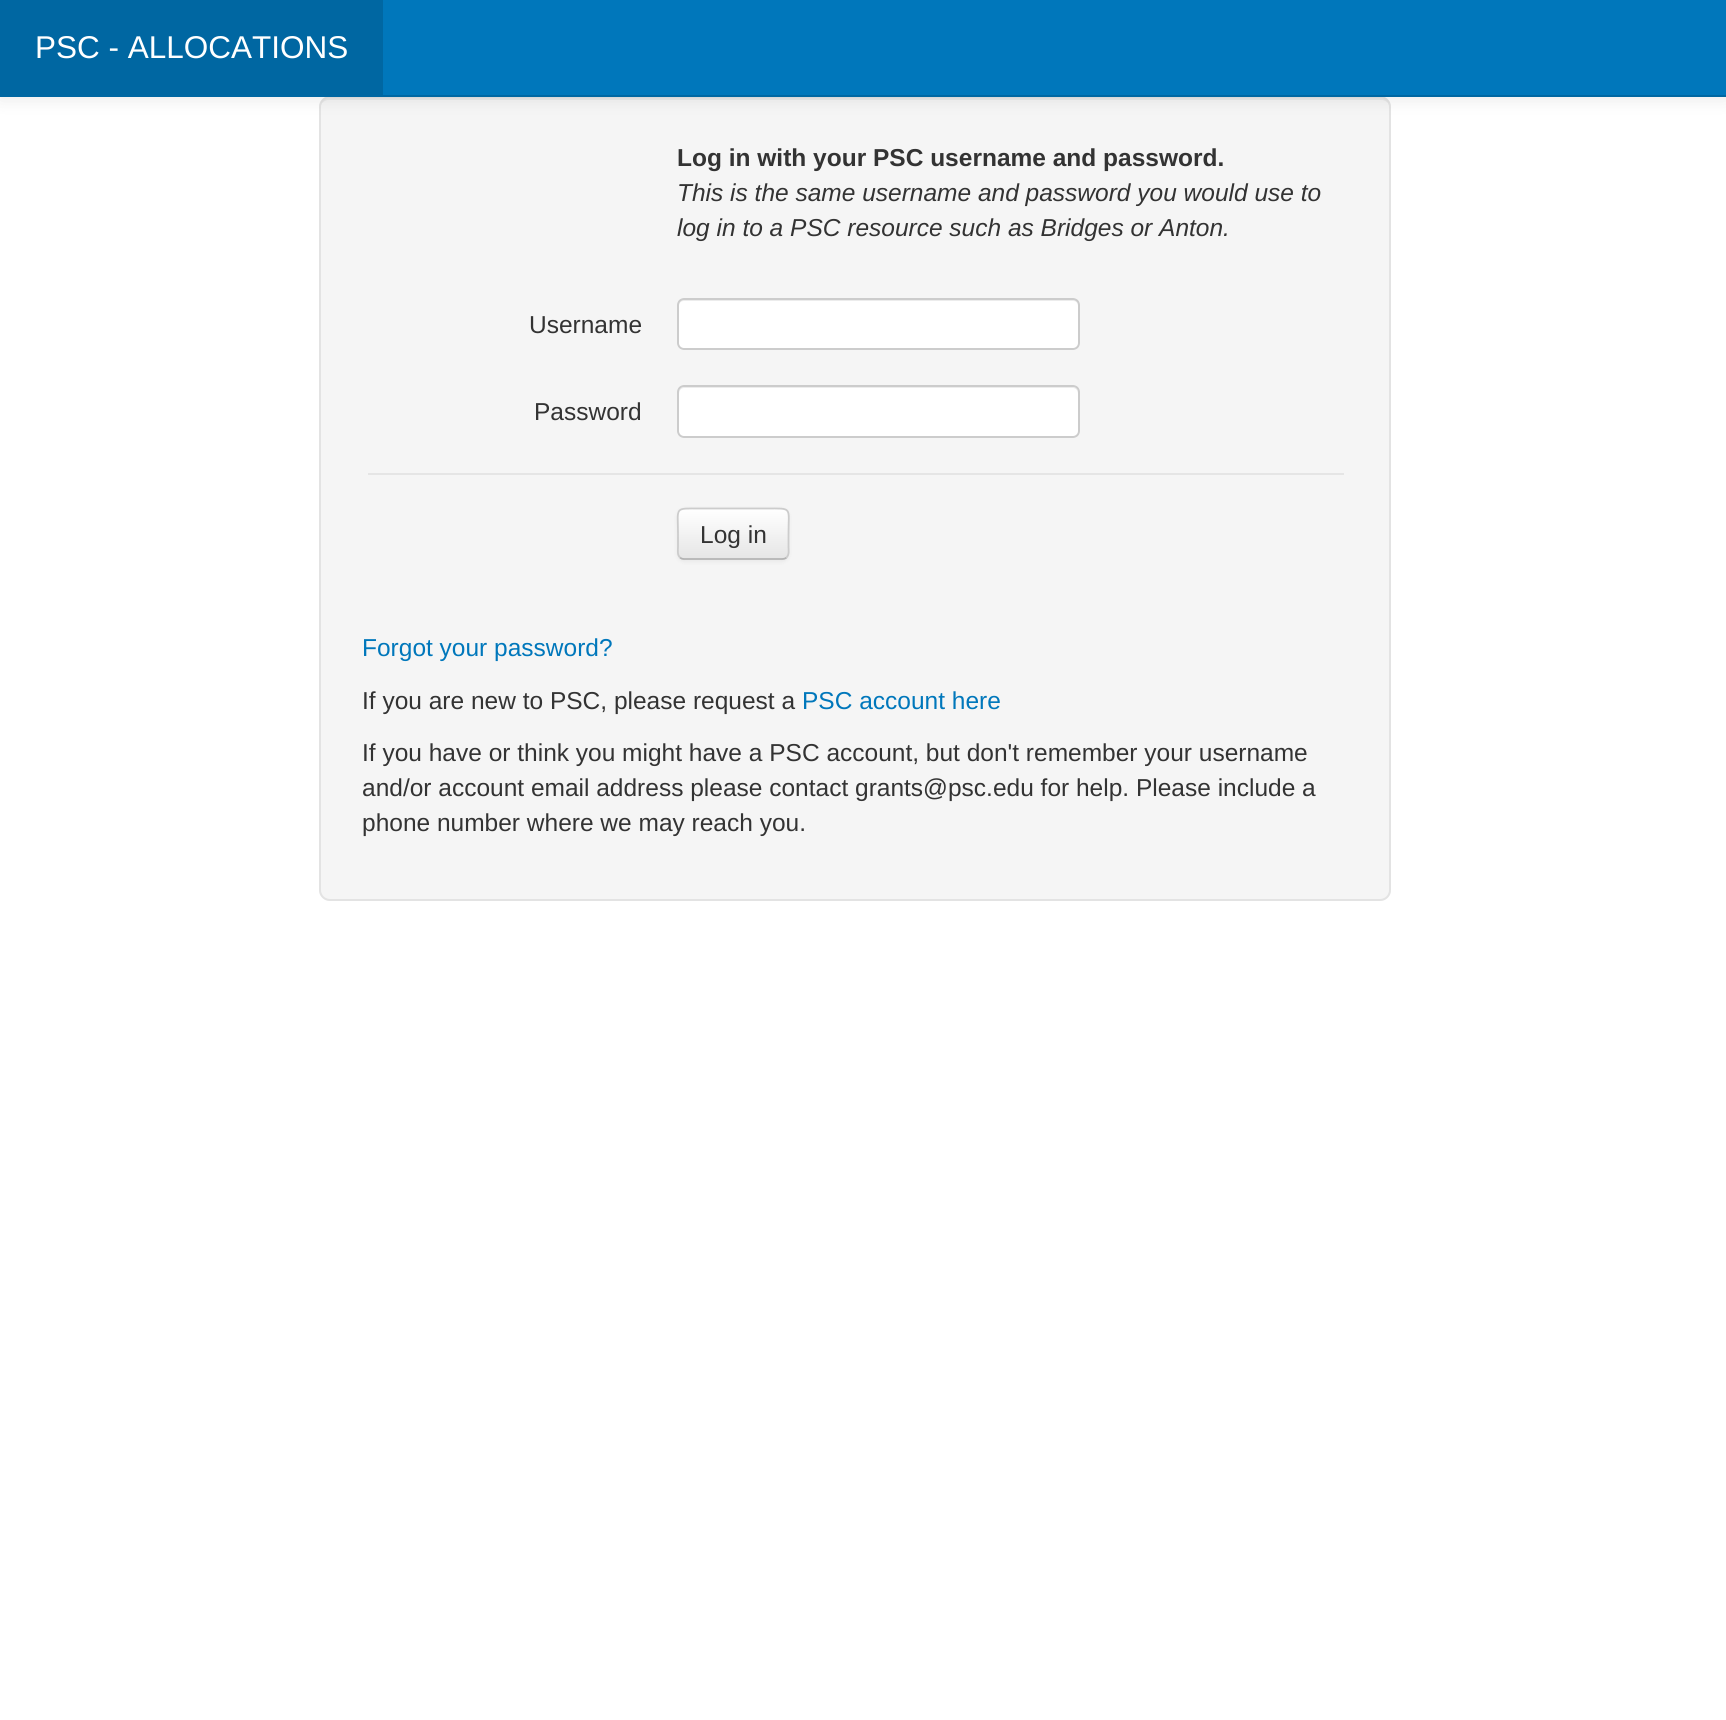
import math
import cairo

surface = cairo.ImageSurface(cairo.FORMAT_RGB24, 1726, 1720)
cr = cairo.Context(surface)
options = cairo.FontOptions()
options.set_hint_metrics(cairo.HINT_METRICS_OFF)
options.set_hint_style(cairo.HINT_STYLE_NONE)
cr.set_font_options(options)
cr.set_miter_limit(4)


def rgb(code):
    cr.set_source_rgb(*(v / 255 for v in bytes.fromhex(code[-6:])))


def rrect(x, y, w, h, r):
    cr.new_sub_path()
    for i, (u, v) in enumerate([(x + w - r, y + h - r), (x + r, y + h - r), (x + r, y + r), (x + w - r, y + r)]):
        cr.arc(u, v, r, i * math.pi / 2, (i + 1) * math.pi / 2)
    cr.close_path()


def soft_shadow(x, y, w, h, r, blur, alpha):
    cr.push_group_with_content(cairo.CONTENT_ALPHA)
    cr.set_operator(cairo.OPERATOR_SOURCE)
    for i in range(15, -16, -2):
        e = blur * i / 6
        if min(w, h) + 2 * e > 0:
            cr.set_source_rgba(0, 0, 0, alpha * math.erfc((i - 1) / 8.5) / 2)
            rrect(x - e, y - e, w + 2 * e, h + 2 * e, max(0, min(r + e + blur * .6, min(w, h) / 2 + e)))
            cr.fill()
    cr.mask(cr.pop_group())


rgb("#ffffff")
cr.paint()
rgb("#f5f5f5")
rrect(319, 96, 1072, 805, 11)
cr.fill()
rgb("#e9e9e9")
cr.new_path()
cr.move_to(329, 100)
cr.line_to(1381, 100)
cr.curve_to(1386, 100, 1390, 104, 1390, 108)
cr.curve_to(1390, 103, 1387, 98, 1381, 98)
cr.line_to(329, 98)
cr.curve_to(323, 98, 320, 103, 320, 108)
cr.curve_to(320, 104, 324, 100, 329, 100)
cr.close_path()
cr.fill()
rrect(320, 97, 1070, 803, 10)
rgb("#e3e3e3")
cr.stroke()
rgb("#000000")
soft_shadow(0, 2, 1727, 96, 0, 9, 0.1)
for x, y, w, h, color in [
    (383, 0, 1343, 95, "#0077bb"),
    (0, 95, 1726, 2, "#0067a2"),
    (0, 0, 383, 95, "#0067a2"),
]:
    rgb(color)
    cr.rectangle(x, y, w, h)
    cr.fill()
rgb("#ffffff")
rrect(677, 298, 403, 52, 7)
cr.fill()
rgb("#ececec")
cr.new_path()
cr.move_to(684, 301)
cr.line_to(1073, 301)
cr.curve_to(1076, 301, 1078, 303, 1078, 306)
cr.line_to(1078, 304)
cr.curve_to(1078, 301, 1076, 299, 1073, 299)
cr.line_to(684, 299)
cr.curve_to(681, 299, 679, 301, 679, 304)
cr.line_to(679, 306)
cr.curve_to(679, 303, 681, 301, 684, 301)
cr.close_path()
cr.fill()
rrect(678, 299, 401, 50, 6)
rgb("#cccccc")
cr.stroke()
rgb("#ffffff")
rrect(677, 385, 403, 53, 7)
cr.fill()
rgb("#ececec")
cr.new_path()
cr.move_to(684, 388)
cr.line_to(1073, 388)
cr.curve_to(1076, 388, 1078, 391, 1078, 394)
cr.line_to(1078, 392)
cr.curve_to(1078, 389, 1076, 387, 1073, 387)
cr.line_to(684, 387)
cr.curve_to(681, 387, 679, 389, 679, 392)
cr.line_to(679, 394)
cr.curve_to(679, 391, 681, 388, 684, 388)
cr.close_path()
cr.fill()
rrect(678, 386, 401, 51, 6)
rgb("#cccccc")
cr.stroke()
rgb("#e5e5e5")
cr.rectangle(368, 473, 976, 2)
cr.fill()
rgb("#000000")
soft_shadow(677, 509, 112, 53, 7, 2, 0.05)
cr.save()
rrect(677, 508, 112, 52, 7)
cr.clip()
gradient = cairo.LinearGradient(733, 509, 733, 558)
gradient.add_color_stop_rgba(0, 1, 1, 1, 1)
gradient.add_color_stop_rgba(1, 0.902, 0.902, 0.902, 1)
cr.set_source(gradient)
cr.rectangle(677, 509, 112, 49)
cr.fill()
cr.restore()
cr.new_path()
cr.move_to(786.5, 557.5)
cr.curve_to(785.5, 558.5, 784, 559, 782, 559)
cr.line_to(684, 559)
cr.curve_to(682.5, 559, 681, 558.5, 680, 557.5)
rgb("#b3b3b3")
cr.set_line_width(1.8)
cr.stroke()
cr.new_path()
cr.move_to(680, 557.5)
cr.curve_to(677, 554.5, 678, 550, 678, 546.5)
cr.line_to(678, 534)
cr.curve_to(678, 506.5, 673.5, 508.5, 700.5, 508.5)
cr.line_to(766, 508.5)
cr.curve_to(793, 508.5, 788.5, 506.5, 788.5, 534)
cr.line_to(788.5, 546.5)
cr.curve_to(788.5, 550, 789.5, 554.5, 786.5, 557.5)
rgb("#cccccc")
cr.stroke()
cr.select_font_face("Liberation Sans")
cr.set_font_size(31.5)
rgb("#ffffff")
cr.move_to(35, 58)
cr.show_text("PSC - ALLOCATIONS")
cr.select_font_face("Liberation Sans", cairo.FONT_SLANT_NORMAL, cairo.FONT_WEIGHT_BOLD)
cr.set_font_size(24.5)
rgb("#333333")
cr.move_to(677, 166)
cr.show_text("Log in with your PSC username and password.")
cr.select_font_face("Liberation Sans", cairo.FONT_SLANT_ITALIC)
cr.move_to(677, 201)
cr.show_text("This is the same username and password you would use to")
cr.move_to(677, 236)
cr.show_text("log in to a PSC resource such as Bridges or Anton.")
cr.select_font_face("Liberation Sans")
for x, y, s in [
    (529, 333, "Username"),
    (534, 420, "Password"),
    (700, 543, "Log in"),
]:
    cr.move_to(x, y)
    cr.show_text(s)
rgb("#0077bb")
cr.move_to(362, 656)
cr.show_text("Forgot your password?")
rgb("#333333")
cr.move_to(362, 709)
cr.show_text("If you are new to PSC, please request a")
rgb("#0077bb")
cr.move_to(802, 709)
cr.show_text("PSC account here")
rgb("#333333")
for x, y, s in [
    (362, 761, "If you have or think you might have a PSC account, but don't remember your username"),
    (362, 796, "and/or account email address please contact grants@psc.edu for help. Please include a"),
    (362, 831, "phone number where we may reach you."),
]:
    cr.move_to(x, y)
    cr.show_text(s)
surface.write_to_png("page.png")
